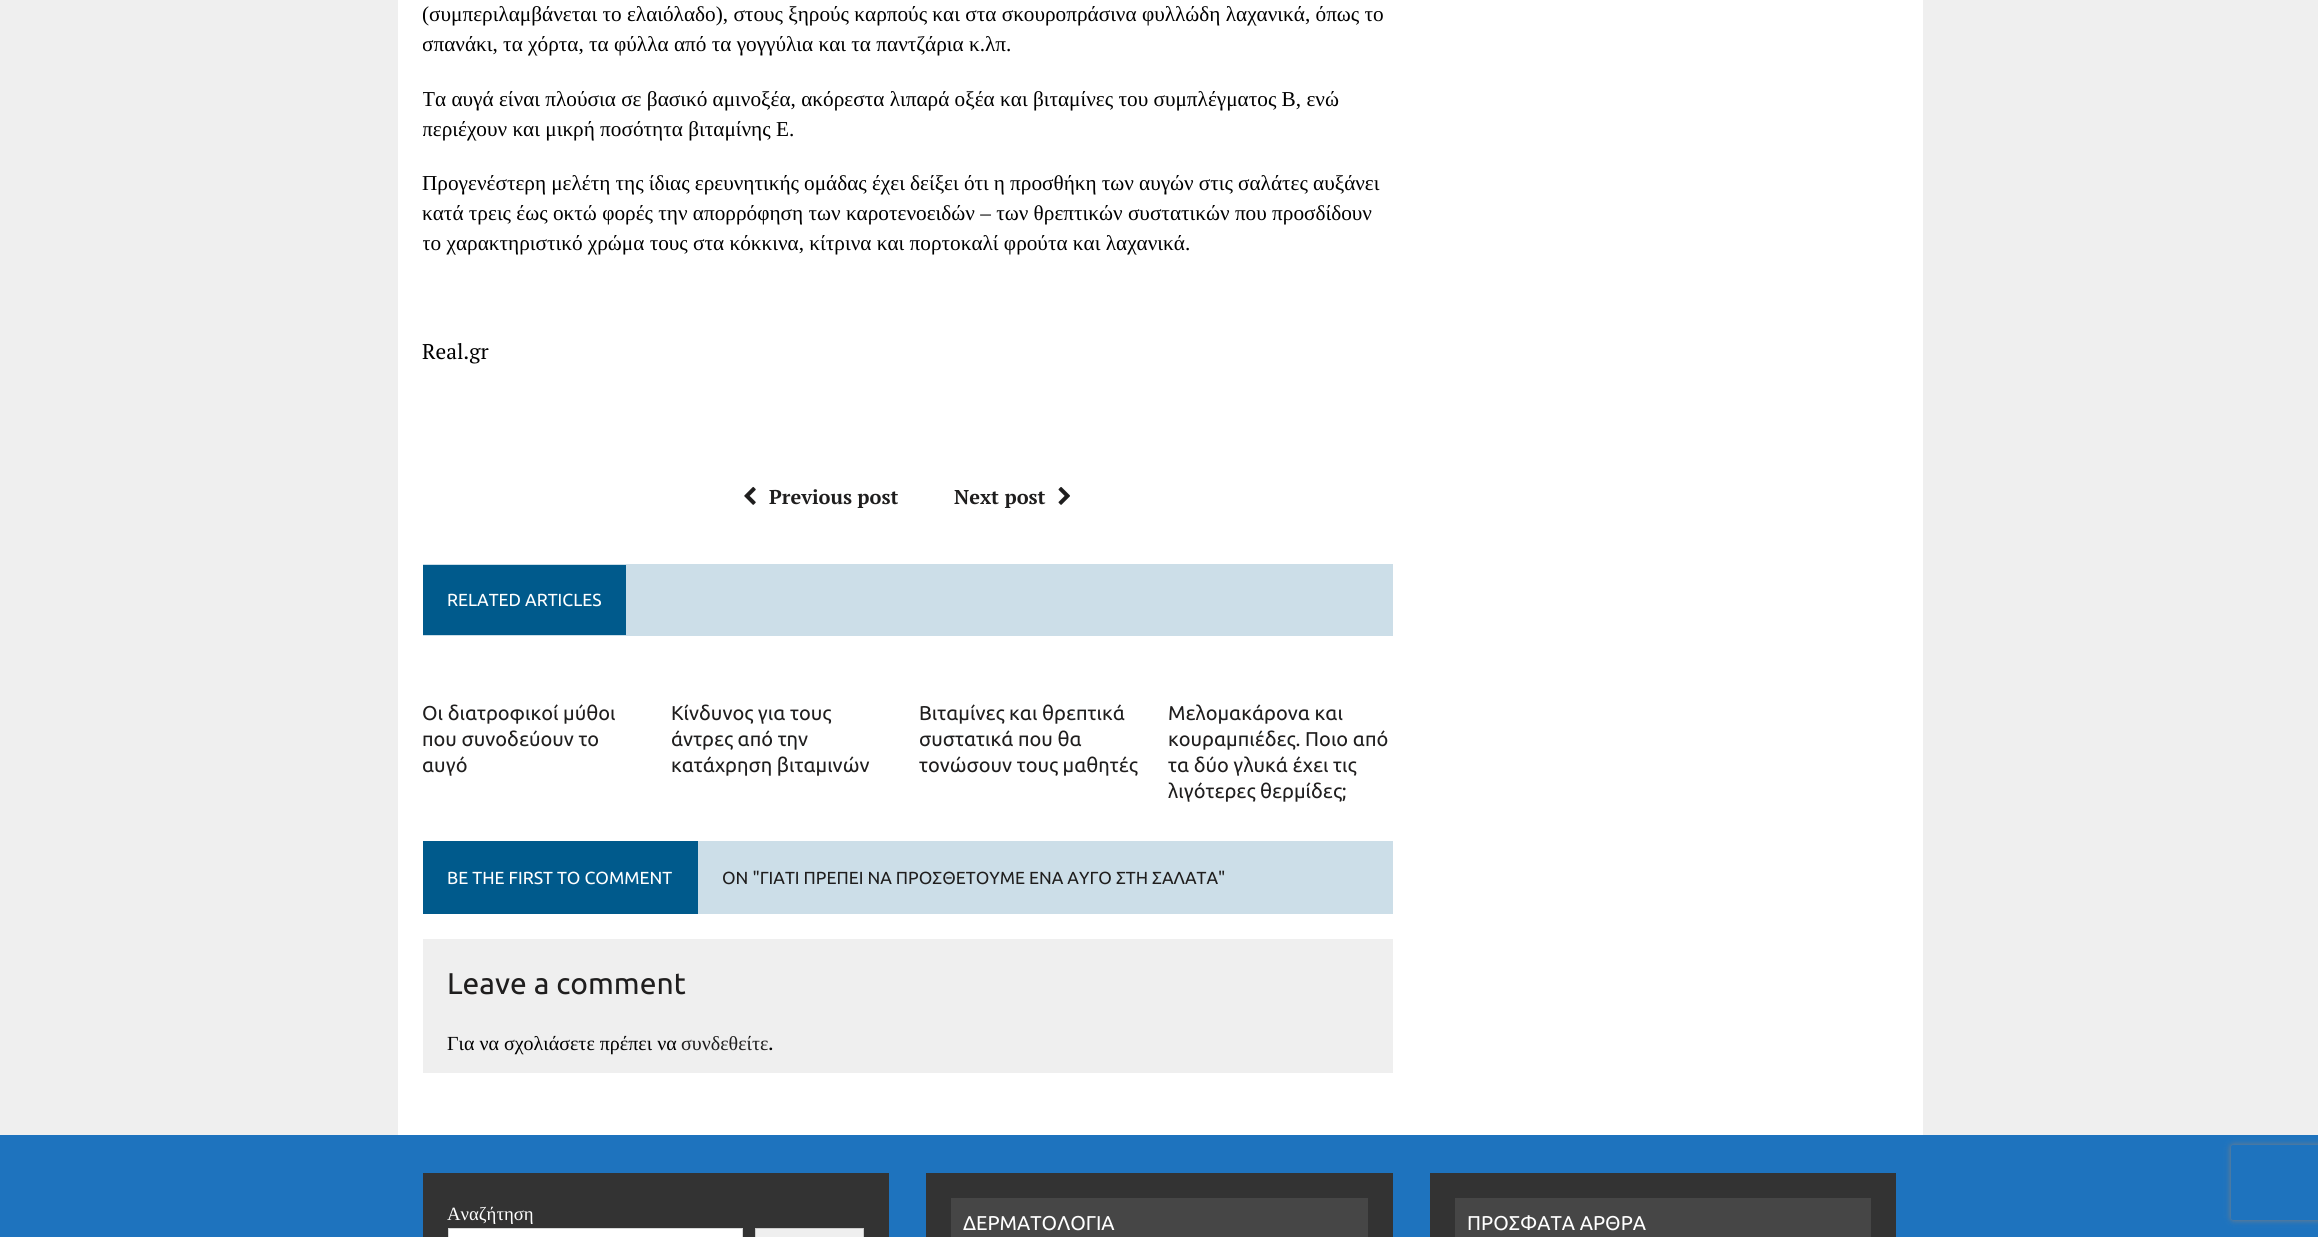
import math
import cairo

surface = cairo.ImageSurface(cairo.FORMAT_RGB24, 2318, 1237)
cr = cairo.Context(surface)
options = cairo.FontOptions()
options.set_hint_metrics(cairo.HINT_METRICS_OFF)
options.set_hint_style(cairo.HINT_STYLE_NONE)
cr.set_font_options(options)
cr.set_miter_limit(4)


def rgb(code):
    cr.set_source_rgb(*(v / 255 for v in bytes.fromhex(code[-6:])))


def tracked(x, y, s, letter, word):
    cr.move_to(x, y)
    for ch in s:
        cr.show_text(ch)
        cr.rel_move_to(letter + word * (ch == ' '), 0)


def rrect(x, y, w, h, r):
    cr.new_sub_path()
    for i, (u, v) in enumerate([(x + w - r, y + h - r), (x + r, y + h - r), (x + r, y + r), (x + w - r, y + r)]):
        cr.arc(u, v, r, i * math.pi / 2, (i + 1) * math.pi / 2)
    cr.close_path()


def soft_shadow(x, y, w, h, r, blur, alpha):
    cr.push_group_with_content(cairo.CONTENT_ALPHA)
    cr.set_operator(cairo.OPERATOR_SOURCE)
    for i in range(15, -16, -2):
        e = blur * i / 6
        if min(w, h) + 2 * e > 0:
            cr.set_source_rgba(0, 0, 0, alpha * math.erfc((i - 1) / 8.5) / 2)
            rrect(x - e, y - e, w + 2 * e, h + 2 * e, max(0, min(r + e + blur * .6, min(w, h) / 2 + e)))
            cr.fill()
    cr.mask(cr.pop_group())


def image(path, x, y, w, h):
    cr.save()
    cr.set_source_surface(cairo.ImageSurface.create_from_png(path), x, y)
    cr.rectangle(x, y, w, h)
    cr.fill()
    cr.restore()


rgb("#efefef")
cr.paint()
rgb("#ffffff")
cr.rectangle(398, 0, 1525, 1135)
cr.fill()
image("img/1.png", 744, 486, 12, 19)
image("img/2.png", 1058, 487, 12, 18)
for x, y, w, h, color in [
    (423, 564, 970, 72, "#ccdee8"),
    (423, 565, 203, 70, "#005a8c"),
    (698, 841, 695, 73, "#ccdee8"),
    (423, 841, 275, 73, "#005a8c"),
    (423, 939, 970, 134, "#efefef"),
    (0, 1135, 2318, 102, "#1e73be"),
    (423, 1173, 466, 64, "#333333"),
]:
    rgb(color)
    cr.rectangle(x, y, w, h)
    cr.fill()
rgb("#ffffff")
cr.rectangle(448.5, 1228.5, 294, 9)
cr.fill_preserve()
rgb("#d7d8d8")
cr.set_line_width(1)
cr.stroke()
rgb("#efefef")
cr.rectangle(755.5, 1228.5, 108, 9)
cr.fill_preserve()
rgb("#cccccc")
cr.stroke()
for x, y, w, h, color in [
    (926, 1173, 467, 64, "#333333"),
    (951, 1198, 417, 39, "#464646"),
    (1430, 1173, 466, 64, "#333333"),
    (1455, 1198, 416, 39, "#464646"),
]:
    rgb(color)
    cr.rectangle(x, y, w, h)
    cr.fill()
cr.save()
cr.set_fill_rule(cairo.FILL_RULE_EVEN_ODD)
cr.new_path()
cr.move_to(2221, 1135)
cr.line_to(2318, 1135)
cr.line_to(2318, 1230)
cr.line_to(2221, 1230)
cr.close_path()
cr.move_to(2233.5, 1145)
cr.line_to(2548.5, 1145)
cr.curve_to(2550, 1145, 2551, 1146, 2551, 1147.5)
cr.line_to(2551, 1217.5)
cr.curve_to(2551, 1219, 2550, 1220, 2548.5, 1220)
cr.line_to(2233.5, 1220)
cr.curve_to(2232, 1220, 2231, 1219, 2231, 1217.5)
cr.line_to(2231, 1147.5)
cr.curve_to(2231, 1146, 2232, 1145, 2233.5, 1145)
cr.close_path()
cr.clip()
rgb("#808080")
soft_shadow(2231, 1145, 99, 75, 2.5, 3, 1)
cr.restore()
cr.save()
cr.rectangle(423, 0, 970, 1110)
cr.clip()
cr.select_font_face("Liberation Serif")
cr.set_font_size(21.25)
rgb("#000000")
for x, y, s in [
    (422, 21, "(συμπεριλαμβάνεται το ελαιόλαδο), στους ξηρούς καρπούς και στα σκουροπράσινα φυλλώδη λαχανικά, όπως το"),
    (422, 51, "σπανάκι, τα χόρτα, τα φύλλα από τα γογγύλια και τα παντζάρια κ.λπ."),
    (422, 106, "Τα αυγά είναι πλούσια σε βασικό αμινοξέα, ακόρεστα λιπαρά οξέα και βιταμίνες του συμπλέγματος Β, ενώ"),
    (422, 136, "περιέχουν και μικρή ποσότητα βιταμίνης Ε."),
]:
    cr.move_to(x, y)
    cr.show_text(s)
cr.restore()
cr.select_font_face("Liberation Serif")
cr.set_font_size(21.25)
rgb("#000000")
tracked(422, 190, "Προγενέστερη μελέτη της ίδιας ερευνητικής ομάδας έχει δείξει ότι η προσθήκη των αυγών στις σαλάτες αυξάνει", 0, -0.2)
cr.move_to(422, 220)
cr.show_text("κατά τρεις έως οκτώ φορές την απορρόφηση των καροτενοειδών – των θρεπτικών συστατικών που προσδίδουν")
cr.save()
cr.rectangle(423, 0, 970, 1110)
cr.clip()
cr.move_to(422, 250)
cr.show_text("το χαρακτηριστικό χρώμα τους στα κόκκινα, κίτρινα και πορτοκαλί φρούτα και λαχανικά.")
cr.restore()
cr.select_font_face("PT Serif")
cr.move_to(422, 359)
cr.show_text("Real.gr")
cr.select_font_face("PT Serif", cairo.FONT_SLANT_NORMAL, cairo.FONT_WEIGHT_BOLD)
cr.set_font_size(20)
rgb("#1f1e1e")
cr.move_to(769, 504)
cr.show_text("Previous post")
cr.move_to(954, 504)
cr.show_text("Next post")
cr.select_font_face("Ubuntu")
cr.set_font_size(17.5)
rgb("#ffffff")
cr.move_to(447, 606)
cr.show_text("RELATED ARTICLES")
cr.set_font_size(20)
rgb("#1f1e1e")
for x, y, s in [
    (422, 720, "Οι διατροφικοί μύθοι"),
    (422, 746, "που συνοδεύουν το"),
    (422, 772, "αυγό"),
    (671, 720, "Κίνδυνος για τους"),
    (671, 746, "άντρες από την"),
    (671, 772, "κατάχρηση βιταμινών"),
    (919, 720, "Βιταμίνες και θρεπτικά"),
    (919, 746, "συστατικά που θα"),
    (919, 772, "τονώσουν τους μαθητές"),
    (1168, 720, "Μελομακάρονα και"),
    (1168, 746, "κουραμπιέδες. Ποιο από"),
    (1168, 772, "τα δύο γλυκά έχει τις"),
    (1168, 798, "λιγότερες θερμίδες;"),
]:
    cr.move_to(x, y)
    cr.show_text(s)
cr.set_font_size(17.5)
rgb("#ffffff")
cr.move_to(447, 884)
cr.show_text("BE THE FIRST TO COMMENT")
rgb("#1f1e1e")
cr.move_to(722, 884)
cr.show_text("ON \"ΓΙΑΤΙ ΠΡΕΠΕΙ ΝΑ ΠΡΟΣΘΕΤΟΥΜΕ ΕΝΑ ΑΥΓΟ ΣΤΗ ΣΑΛΑΤΑ\"")
cr.set_font_size(30)
cr.move_to(447, 994)
cr.show_text("Leave a comment")
cr.select_font_face("Liberation Serif")
cr.set_font_size(20)
rgb("#000000")
cr.move_to(447, 1050)
cr.show_text("Για να σχολιάσετε πρέπει να")
rgb("#1f1e1e")
cr.move_to(681, 1050)
cr.show_text("συνδεθείτε")
cr.select_font_face("PT Serif")
rgb("#000000")
cr.move_to(768, 1050)
cr.show_text(".")
cr.select_font_face("Liberation Serif")
cr.set_font_size(18.75)
rgb("#ffffff")
cr.move_to(447, 1220)
cr.show_text("Αναζήτηση")
cr.select_font_face("Ubuntu")
cr.set_font_size(20)
cr.move_to(963, 1230)
cr.show_text("ΔΕΡΜΑΤΟΛΟΓΙΑ")
cr.move_to(1467, 1230)
cr.show_text("ΠΡΟΣΦΑΤΑ ΑΡΘΡΑ")
surface.write_to_png("page.png")
